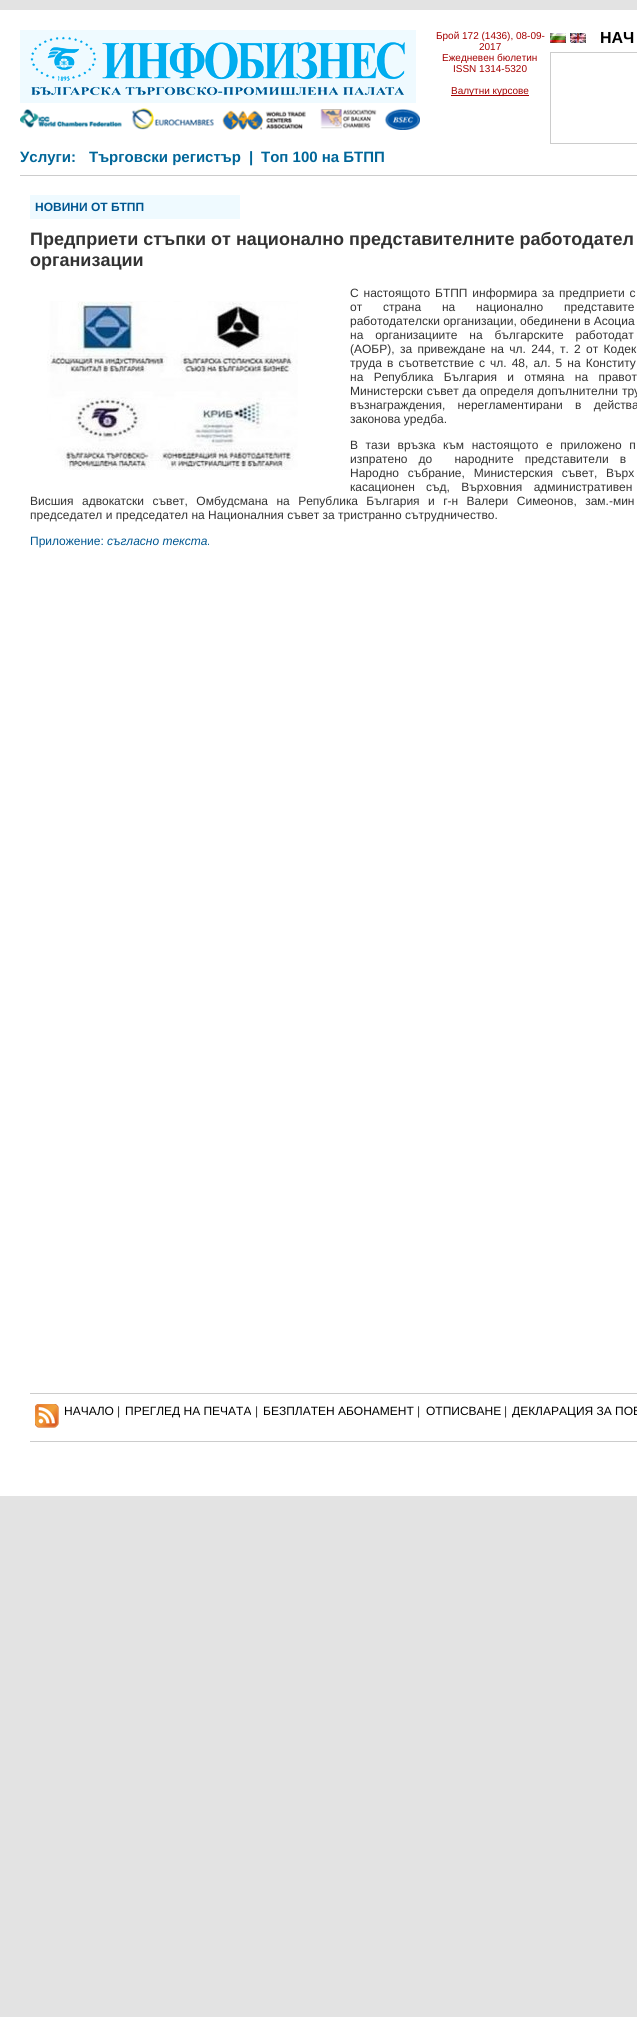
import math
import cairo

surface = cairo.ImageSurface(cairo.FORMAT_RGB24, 637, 2017)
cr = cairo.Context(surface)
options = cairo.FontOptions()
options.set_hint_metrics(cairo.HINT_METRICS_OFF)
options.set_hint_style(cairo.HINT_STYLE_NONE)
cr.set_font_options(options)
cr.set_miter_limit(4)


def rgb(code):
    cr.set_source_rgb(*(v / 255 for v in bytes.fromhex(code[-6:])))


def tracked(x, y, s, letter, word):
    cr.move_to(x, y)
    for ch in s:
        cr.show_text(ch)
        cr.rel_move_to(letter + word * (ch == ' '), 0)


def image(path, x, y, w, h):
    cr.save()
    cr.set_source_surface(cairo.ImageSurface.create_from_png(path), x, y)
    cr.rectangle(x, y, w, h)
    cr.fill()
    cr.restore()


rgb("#e3e3e3")
cr.paint()
rgb("#ffffff")
cr.rectangle(0, 10, 637, 1486)
cr.fill()
rgb("#cccccc")
cr.rectangle(20, 175, 617, 1)
cr.fill()
image("img/1.png", 20, 30, 396, 73)
image("img/2.png", 20, 108, 400, 22)
rgb("#a40000")
cr.rectangle(451, 95, 78, 1)
cr.fill()
image("img/3.png", 550, 33, 16, 10)
image("img/4.png", 570, 33, 16, 10)
cr.rectangle(550.5, 52.5, 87, 91)
rgb("#cccccc")
cr.set_line_width(1)
cr.stroke()
rgb("#effaff")
cr.rectangle(30, 195, 210, 24)
cr.fill()
image("img/5.png", 47, 301, 251, 169)
rgb("#cccccc")
cr.rectangle(30, 1393, 607, 1)
cr.fill()
cr.rectangle(30, 1441, 607, 1)
cr.fill()
image("img/6.png", 35, 1404, 24, 24)
cr.select_font_face("Liberation Sans")
cr.set_font_size(10)
rgb("#a40000")
for x, y, s in [
    (436, 39, "Брой 172 (1436), 08-09-"),
    (479, 50, "2017"),
    (442, 61, "Ежедневен бюлетин"),
    (453, 72, "ISSN 1314-5320"),
    (451, 94, "Валутни курсове"),
]:
    cr.move_to(x, y)
    cr.show_text(s)
cr.select_font_face("Liberation Sans", cairo.FONT_SLANT_NORMAL, cairo.FONT_WEIGHT_BOLD)
cr.set_font_size(16)
rgb("#000000")
cr.move_to(600, 43)
cr.show_text("НАЧ")
cr.set_font_size(15)
rgb("#006699")
for x, y, s in [
    (20, 162, "Услуги:"),
    (89, 162, "Търговски регистър"),
    (249, 162, "|"),
    (261, 162, "Топ 100 на БТПП"),
]:
    cr.move_to(x, y)
    cr.show_text(s)
cr.set_font_size(12)
rgb("#005791")
cr.move_to(35, 211)
cr.show_text("НОВИНИ ОТ БТПП")
cr.set_font_size(18)
rgb("#333333")
cr.move_to(30, 245)
cr.show_text("Предприети стъпки от национално представителните работодател")
cr.move_to(30, 266)
cr.show_text("организации")
cr.select_font_face("Liberation Sans")
cr.set_font_size(12)
tracked(350, 297, "С настоящото БТПП информира за предприети с", 0, 1.5)
tracked(350, 311, "от страна на национално представите", 0, 17.5)
cr.move_to(350, 325)
cr.show_text("работодателски организации, обединени в Асоциа")
tracked(350, 339, "на организациите на българските работодат", 0, 8.5)
tracked(350, 353, "(АОБР), за привеждане на чл. 244, т. 2 от Кодек", 0, 2)
tracked(350, 367, "труда в съответствие с чл. 48, ал. 5 на Конститу", 0, 1.75)
tracked(350, 381, "на Република България и отмяна на правот", 0, 7)
tracked(350, 395, "Министерски съвет да определя допълнителни тру", 0, 0.5)
tracked(350, 409, "възнаграждения, нерегламентирани в действа", 0, 9)
cr.move_to(350, 423)
cr.show_text("законова уредба.")
tracked(350, 449, "В тази връзка към настоящото е приложено п", 0, 4.25)
tracked(350, 463, "изпратено до  народните представители в", 0, 7.75)
tracked(350, 477, "Народно събрание, Министерския съвет, Върх", 0, 5.5)
tracked(350, 491, "касационен съд, Върховния административен", 0, 8)
tracked(30, 505, "Висшия адвокатски съвет, Омбудсмана на Република България и г-н Валери Симеонов, зам.-мин", 0, 5.1)
cr.move_to(30, 519)
cr.show_text("председател и председател на Националния съвет за тристранно сътрудничество.")
rgb("#005791")
cr.move_to(30, 545)
cr.show_text("Приложение:")
cr.select_font_face("Liberation Sans", cairo.FONT_SLANT_ITALIC)
cr.move_to(107, 545)
cr.show_text("съгласно текста.")
cr.select_font_face("Liberation Sans")
rgb("#000000")
cr.move_to(64, 1415)
cr.show_text("НАЧАЛО")
rgb("#333333")
cr.move_to(117, 1415)
cr.show_text("|")
rgb("#000000")
cr.move_to(125, 1415)
cr.show_text("ПРЕГЛЕД НА ПЕЧАТА")
rgb("#333333")
cr.move_to(255, 1415)
cr.show_text("|")
rgb("#000000")
cr.move_to(263, 1415)
cr.show_text("БЕЗПЛАТЕН AБОНАМЕНТ")
rgb("#333333")
cr.move_to(417, 1415)
cr.show_text("|")
rgb("#000000")
cr.move_to(426, 1415)
cr.show_text("ОТПИСВАНЕ")
rgb("#333333")
cr.move_to(504, 1415)
cr.show_text("|")
rgb("#000000")
cr.move_to(512, 1415)
cr.show_text("ДЕКЛАРАЦИЯ ЗА ПОВ")
surface.write_to_png("page.png")
